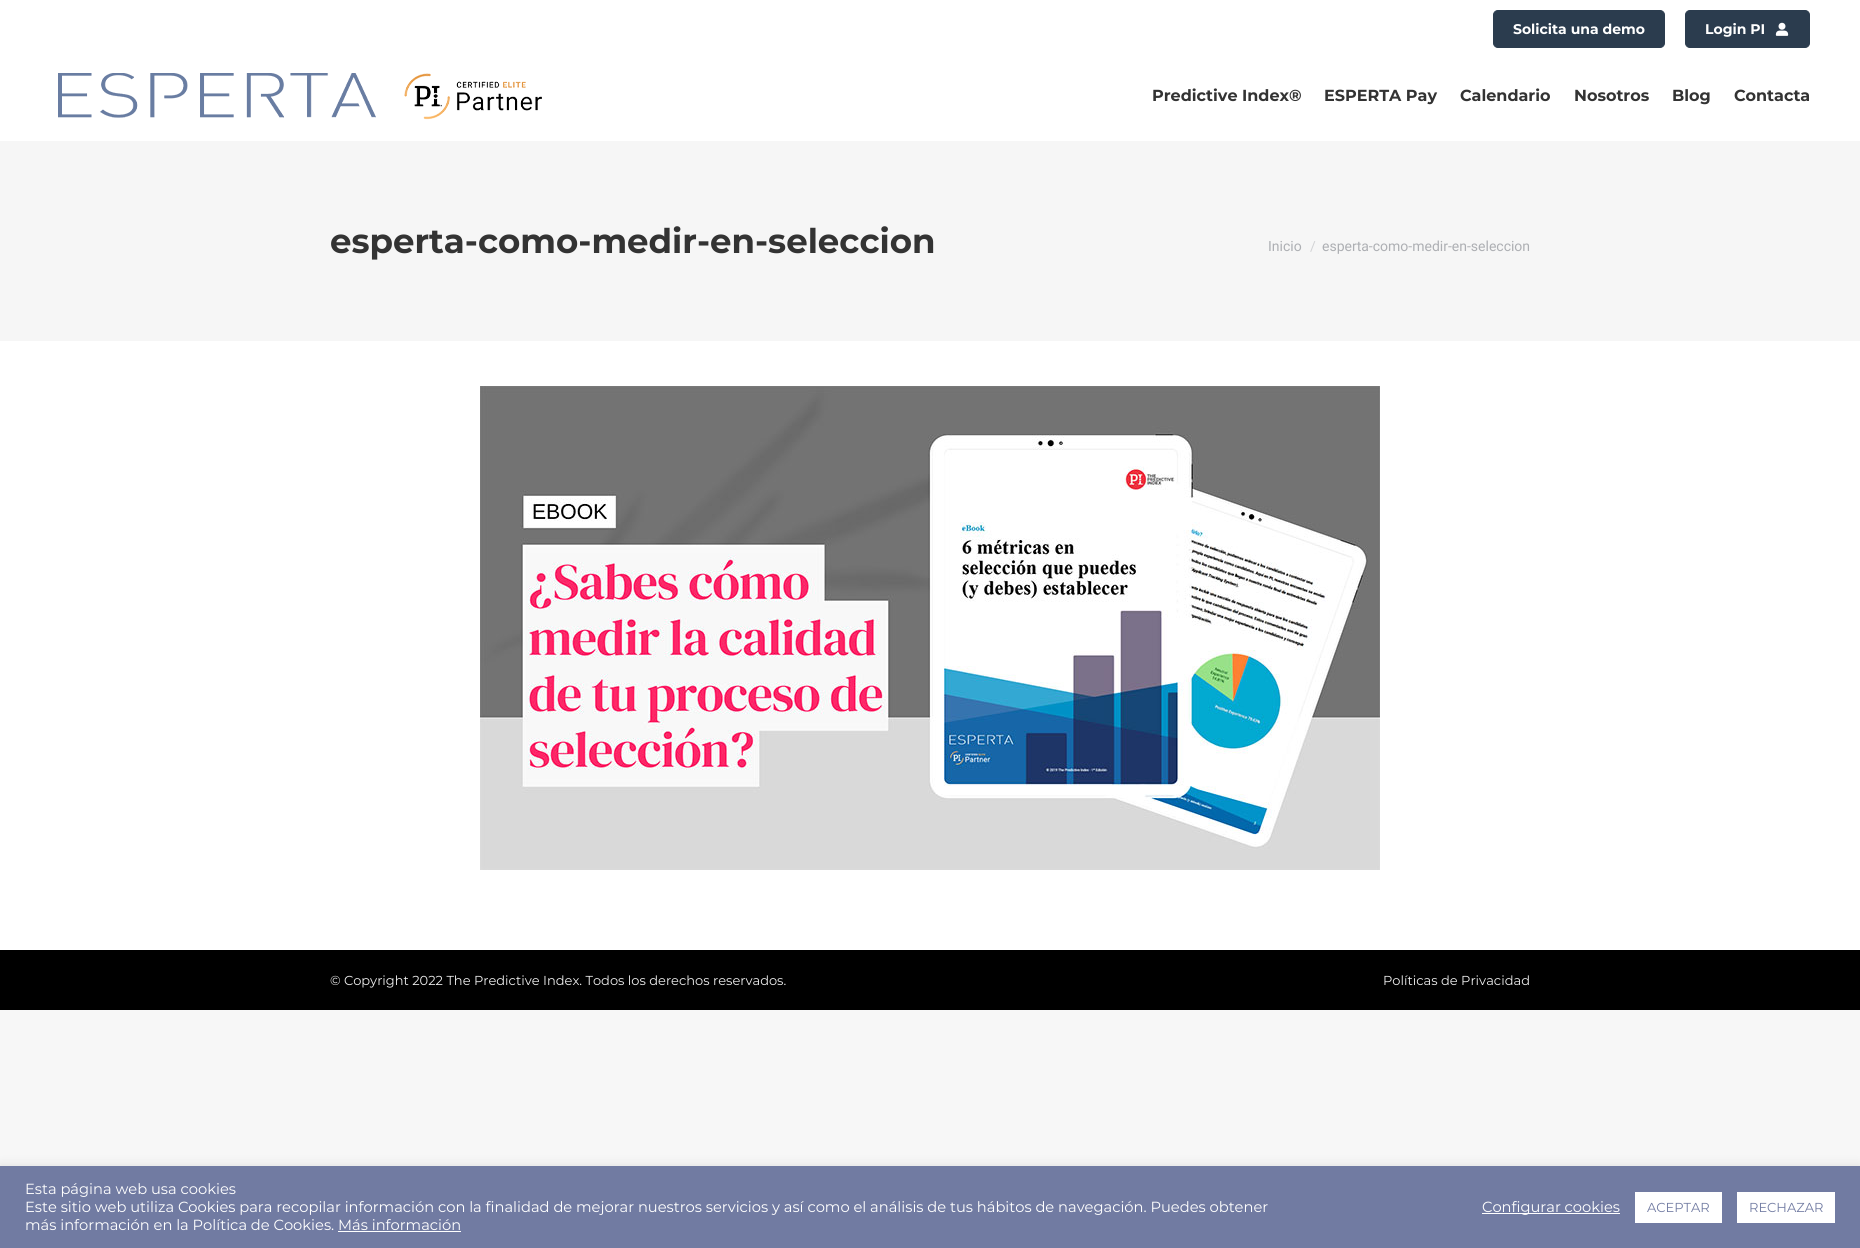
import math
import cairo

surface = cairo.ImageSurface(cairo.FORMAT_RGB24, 1860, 1248)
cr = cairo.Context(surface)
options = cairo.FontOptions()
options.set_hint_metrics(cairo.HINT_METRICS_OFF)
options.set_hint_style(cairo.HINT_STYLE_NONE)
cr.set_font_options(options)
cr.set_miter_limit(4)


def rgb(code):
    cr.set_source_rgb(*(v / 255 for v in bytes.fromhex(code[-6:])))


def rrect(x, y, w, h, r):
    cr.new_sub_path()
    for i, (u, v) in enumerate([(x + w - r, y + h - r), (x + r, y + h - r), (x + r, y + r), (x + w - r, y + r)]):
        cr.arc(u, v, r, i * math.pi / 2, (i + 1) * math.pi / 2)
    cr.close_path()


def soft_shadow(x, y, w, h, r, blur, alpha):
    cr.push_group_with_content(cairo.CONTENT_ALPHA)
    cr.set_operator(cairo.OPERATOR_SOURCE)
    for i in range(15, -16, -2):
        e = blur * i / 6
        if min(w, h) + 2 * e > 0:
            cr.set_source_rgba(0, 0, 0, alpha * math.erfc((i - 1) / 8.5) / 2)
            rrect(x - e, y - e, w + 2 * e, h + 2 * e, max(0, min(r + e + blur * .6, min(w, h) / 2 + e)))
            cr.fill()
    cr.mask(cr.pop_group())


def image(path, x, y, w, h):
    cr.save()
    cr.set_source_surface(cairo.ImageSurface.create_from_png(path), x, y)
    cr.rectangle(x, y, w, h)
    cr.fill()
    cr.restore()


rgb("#f7f7f7")
cr.paint()
rgb("#ffffff")
cr.rectangle(0, 0, 1860, 950)
cr.fill()
rgb("#2b3c4e")
rrect(1493.5, 10.5, 171, 37, 4.5)
cr.fill_preserve()
cr.set_line_width(1)
cr.stroke()
rrect(1685.5, 10.5, 124, 37, 4.5)
cr.fill_preserve()
cr.stroke()
image("img/1.png", 1775, 22, 14, 14)
image("img/2.png", 58, 73, 484, 47)
rgb("#f6f6f6")
cr.rectangle(0, 141, 1860, 200)
cr.fill()
image("img/3.png", 480, 386, 900, 484)
rgb("#000000")
cr.rectangle(0, 950, 1860, 60)
cr.fill()
rgb("#acabab")
soft_shadow(0, 1165, 1860, 82, 0, 5, 0.3)
for x, y, w, h, color in [
    (0, 1166, 1860, 82, "#717ba2"),
    (338, 1231, 123, 1, "#ffffff"),
    (1482, 1213, 138, 1, "#ffffff"),
    (1635, 1192, 87, 31, "#ffffff"),
    (1737, 1192, 98, 31, "#ffffff"),
]:
    rgb(color)
    cr.rectangle(x, y, w, h)
    cr.fill()
cr.select_font_face("Montserrat", cairo.FONT_SLANT_NORMAL, cairo.FONT_WEIGHT_BOLD)
cr.set_font_size(14)
cr.move_to(1513, 34)
cr.show_text("Solicita una demo")
cr.move_to(1705, 34)
cr.show_text("Login PI")
cr.set_font_size(16)
rgb("#333333")
for x, y, s in [
    (1152, 101, "Predictive Index®"),
    (1324, 101, "ESPERTA Pay"),
    (1460, 101, "Calendario"),
    (1574, 101, "Nosotros"),
    (1672, 101, "Blog"),
    (1734, 101, "Contacta"),
]:
    cr.move_to(x, y)
    cr.show_text(s)
cr.set_font_size(34)
cr.move_to(330, 253)
cr.show_text("esperta-como-medir-en-seleccion")
cr.select_font_face("Roboto")
cr.set_font_size(14)
rgb("#adafb3")
cr.move_to(1268, 251)
cr.show_text("Inicio")
rgb("#d2d3d5")
cr.move_to(1310, 251)
cr.show_text("/")
rgb("#adafb3")
cr.move_to(1322, 251)
cr.show_text("esperta-como-medir-en-seleccion")
cr.select_font_face("Montserrat")
cr.set_font_size(13)
rgb("#eeeeee")
cr.move_to(330, 985)
cr.show_text("© Copyright 2022 The Predictive Index. Todos los derechos reservados.")
cr.move_to(1383, 985)
cr.show_text("Políticas de Privacidad")
cr.set_font_size(14.67)
rgb("#ffffff")
for x, y, s in [
    (25, 1194, "Esta página web usa cookies"),
    (25, 1212, "Este sitio web utiliza Cookies para recopilar información con la finalidad de mejorar nuestros servicios y así como el análisis de tus hábitos de navegación. Puedes obtener"),
    (25, 1230, "más información en la Política de Cookies. Más información"),
    (1482, 1212, "Configurar cookies"),
]:
    cr.move_to(x, y)
    cr.show_text(s)
cr.set_font_size(13)
rgb("#717ba2")
cr.move_to(1647, 1212)
cr.show_text("ACEPTAR")
cr.move_to(1749, 1212)
cr.show_text("RECHAZAR")
surface.write_to_png("page.png")
